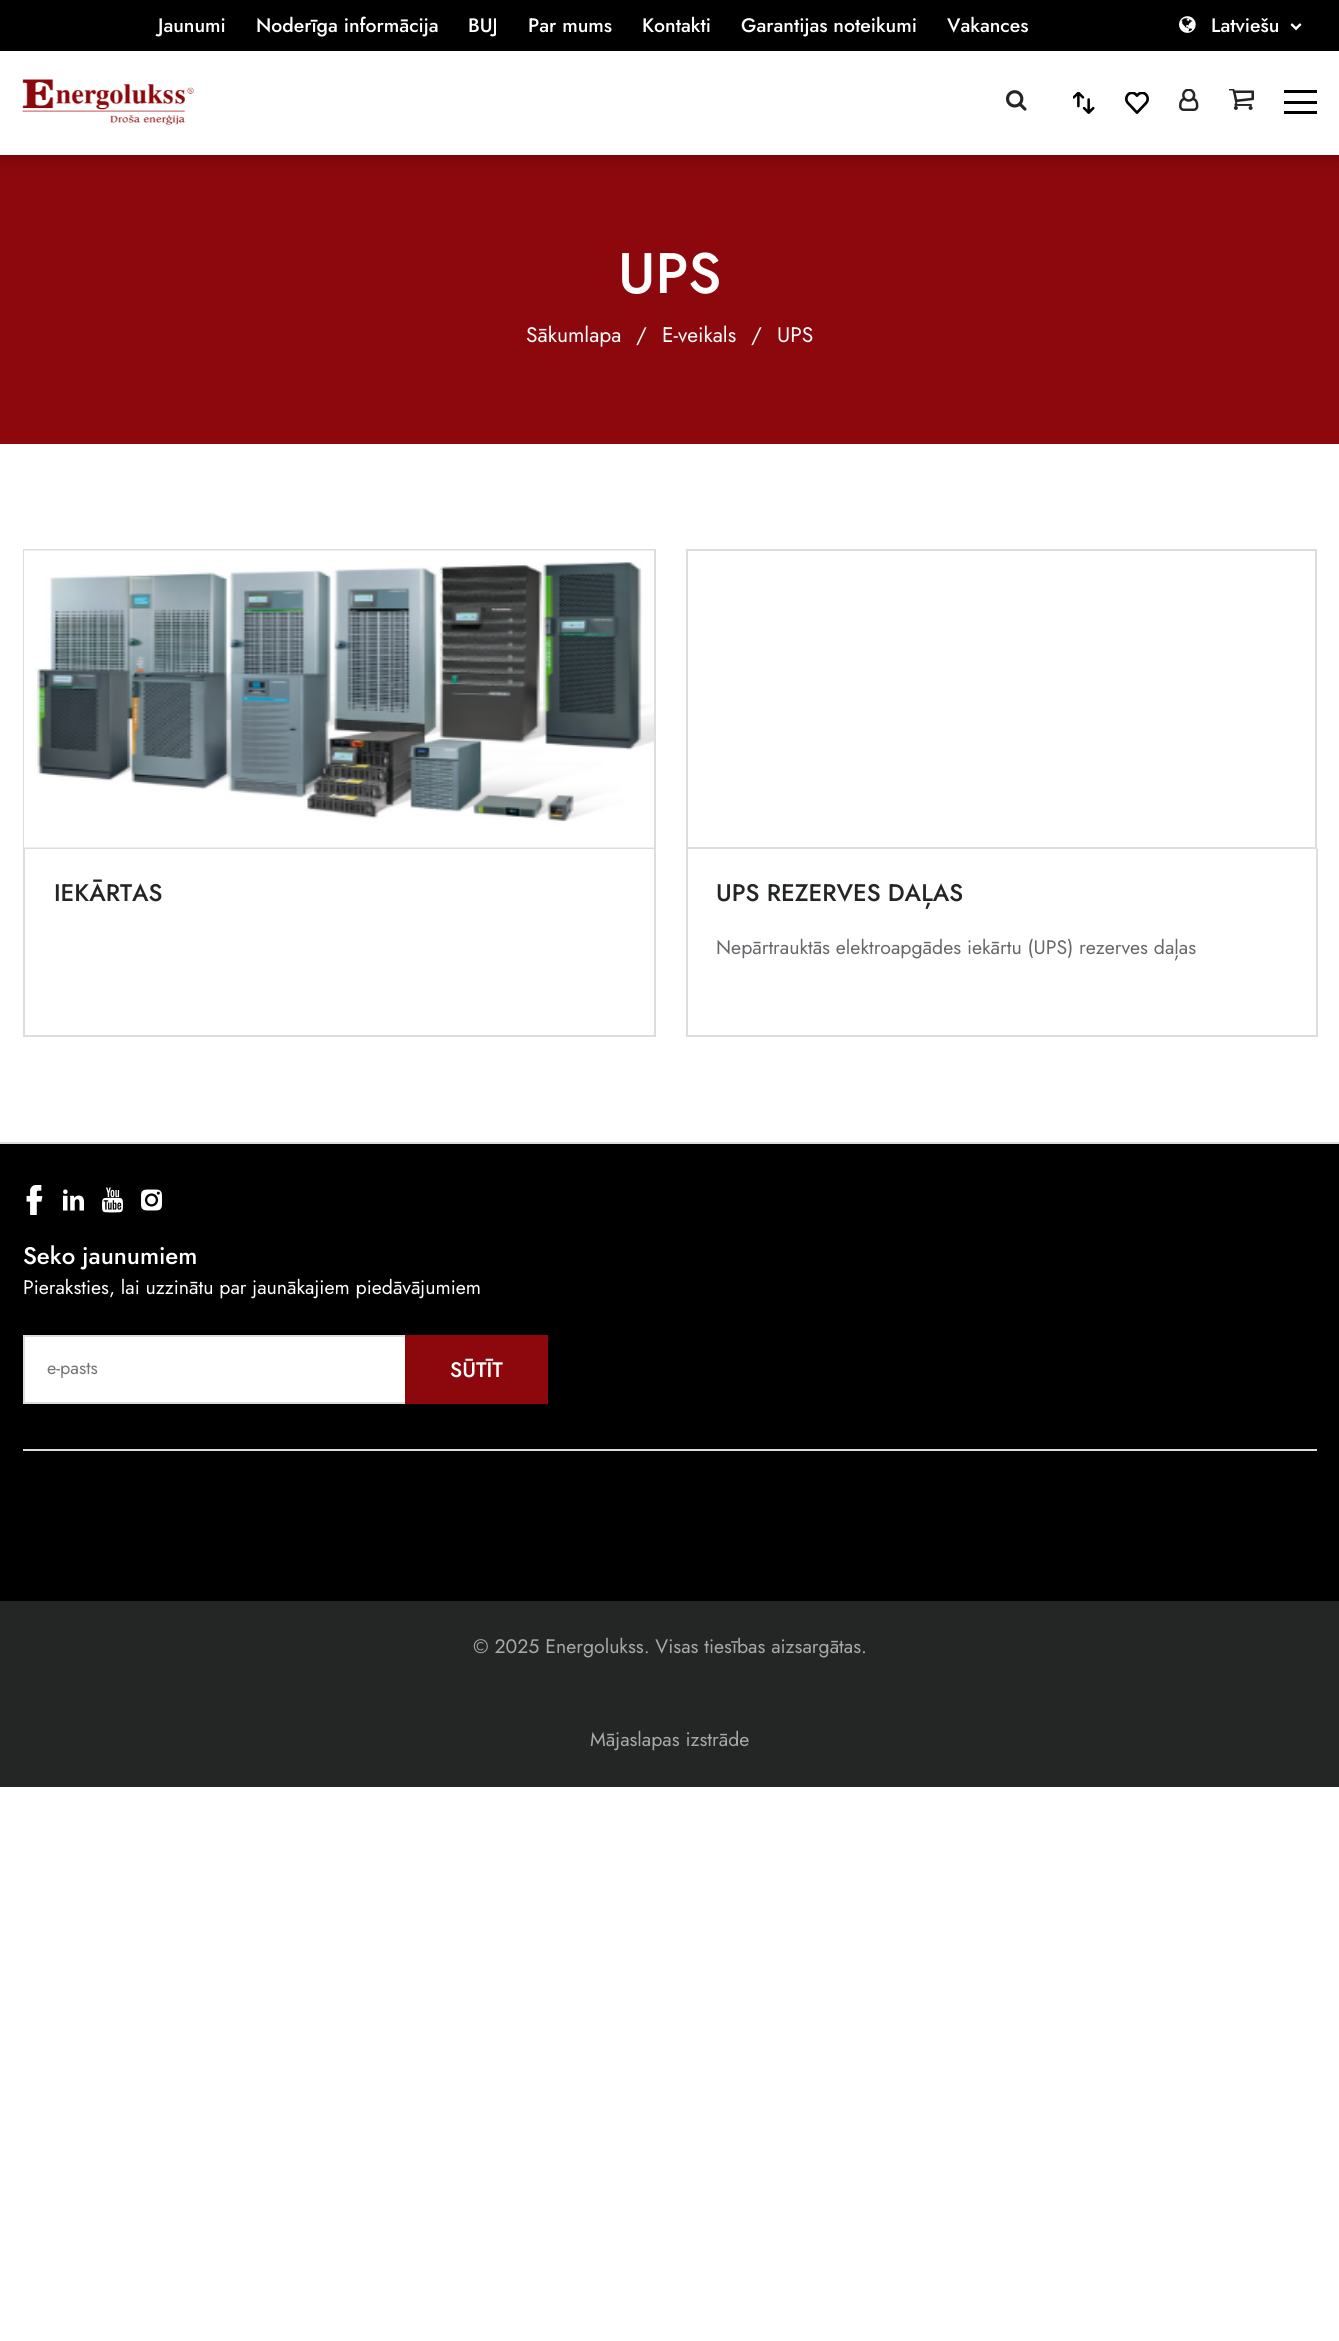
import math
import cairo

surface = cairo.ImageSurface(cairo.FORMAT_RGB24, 1339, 2341)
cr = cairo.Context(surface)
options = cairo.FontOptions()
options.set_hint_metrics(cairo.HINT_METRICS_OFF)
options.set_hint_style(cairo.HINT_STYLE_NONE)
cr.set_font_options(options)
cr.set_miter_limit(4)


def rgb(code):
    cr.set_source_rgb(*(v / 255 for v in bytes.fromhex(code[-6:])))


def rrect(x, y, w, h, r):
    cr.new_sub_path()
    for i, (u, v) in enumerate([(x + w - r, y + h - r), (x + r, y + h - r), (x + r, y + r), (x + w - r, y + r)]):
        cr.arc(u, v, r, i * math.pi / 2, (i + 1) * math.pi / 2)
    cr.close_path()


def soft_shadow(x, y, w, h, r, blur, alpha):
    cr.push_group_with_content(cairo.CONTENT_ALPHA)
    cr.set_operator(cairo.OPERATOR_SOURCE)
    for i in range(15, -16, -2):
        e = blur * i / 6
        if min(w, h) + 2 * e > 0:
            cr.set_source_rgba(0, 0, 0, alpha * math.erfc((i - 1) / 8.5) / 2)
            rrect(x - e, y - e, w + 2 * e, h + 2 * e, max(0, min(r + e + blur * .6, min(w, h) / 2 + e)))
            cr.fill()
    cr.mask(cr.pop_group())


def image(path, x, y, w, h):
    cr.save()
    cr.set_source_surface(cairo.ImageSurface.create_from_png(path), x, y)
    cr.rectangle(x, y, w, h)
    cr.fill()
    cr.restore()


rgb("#ffffff")
cr.paint()
rgb("#8c080c")
cr.rectangle(0, 155, 1339, 289)
cr.fill()
rgb("#000000")
soft_shadow(0, 51, 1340, 104, 0, 7.5, 0.3)
rgb("#000000")
cr.rectangle(0, 0, 1339, 51)
cr.fill()
image("img/1.png", 1179, 16, 17, 17)
image("img/2.png", 1290, 23, 12, 8)
rgb("#ffffff")
cr.rectangle(0, 51, 1339, 104)
cr.fill()
image("img/3.png", 22, 79, 172, 46)
image("img/4.png", 1006, 90, 21, 21)
image("img/5.png", 1073, 92, 22, 22)
image("img/6.png", 1125, 92, 24, 22)
image("img/7.png", 1179, 89, 20, 22)
image("img/8.png", 1229, 89, 25, 21)
for x, y, w, h, color in [
    (1284, 90, 33, 3, "#000000"),
    (1284, 101, 33, 3, "#000000"),
    (1284, 111, 33, 3, "#000000"),
]:
    rgb(color)
    cr.rectangle(x, y, w, h)
    cr.fill()
cr.rectangle(24, 550, 631, 298)
rgb("#dddddd")
cr.stroke()
image("img/9.png", 24, 550, 630, 298)
for x, y, w, h, color in [
    (654, 849, 2, 188, "#dddddd"),
    (23, 1035, 633, 2, "#dddddd"),
    (23, 849, 2, 188, "#dddddd"),
]:
    rgb(color)
    cr.rectangle(x, y, w, h)
    cr.fill()
cr.rectangle(687, 550, 629, 298)
cr.stroke()
for x, y, w, h, color in [
    (1316, 849, 2, 188, "#dddddd"),
    (686, 1035, 631, 2, "#dddddd"),
    (686, 849, 2, 188, "#dddddd"),
    (0, 1144, 1339, 457, "#000000"),
    (0, 1142, 1339, 2, "#dddddd"),
]:
    rgb(color)
    cr.rectangle(x, y, w, h)
    cr.fill()
image("img/10.png", 26, 1185, 17, 30)
image("img/11.png", 63, 1189, 21, 22)
image("img/12.png", 102, 1187, 21, 26)
image("img/13.png", 141, 1189, 21, 22)
rgb("#ffffff")
cr.rectangle(25, 1337, 380, 65)
cr.fill()
cr.rectangle(24, 1336, 523, 67)
rgb("#dddddd")
cr.stroke()
for x, y, w, h, color in [
    (405, 1335, 143, 69, "#8c080c"),
    (23, 1449, 1294, 2, "#dddddd"),
    (0, 1601, 1339, 186, "#242626"),
]:
    rgb(color)
    cr.rectangle(x, y, w, h)
    cr.fill()
cr.select_font_face("Jost Medium")
cr.set_font_size(19.5)
rgb("#ffffff")
for x, y, s in [
    (158, 32, "Jaunumi"),
    (256, 32, "Noderīga informācija"),
    (468, 32, "BUJ"),
    (528, 32, "Par mums"),
    (642, 32, "Kontakti"),
    (741, 32, "Garantijas noteikumi"),
    (947, 32, "Vakances"),
    (1211, 32, "Latviešu"),
]:
    cr.move_to(x, y)
    cr.show_text(s)
cr.set_font_size(57)
cr.move_to(618, 293)
cr.show_text("UPS")
cr.select_font_face("Jost")
cr.set_font_size(21)
for x, y, s in [
    (526, 342, "Sākumlapa"),
    (636, 342, "/"),
    (662, 342, "E-veikals"),
    (751, 342, "/"),
    (777, 342, "UPS"),
]:
    cr.move_to(x, y)
    cr.show_text(s)
cr.select_font_face("Jost Medium")
cr.set_font_size(24)
rgb("#242626")
cr.move_to(54, 901)
cr.show_text("IEKĀRTAS")
cr.move_to(716, 901)
cr.show_text("UPS REZERVES DAĻAS")
cr.select_font_face("Jost")
cr.set_font_size(19.5)
rgb("#68686c")
cr.move_to(716, 954)
cr.show_text("Nepārtrauktās elektroapgādes iekārtu (UPS) rezerves daļas")
cr.select_font_face("Jost Medium")
cr.set_font_size(24)
rgb("#ffffff")
cr.move_to(23, 1264)
cr.show_text("Seko jaunumiem")
cr.select_font_face("Jost")
cr.set_font_size(19.5)
cr.move_to(23, 1294)
cr.show_text("Pieraksties, lai uzzinātu par jaunākajiem piedāvājumiem")
cr.set_font_size(18)
rgb("#757575")
cr.move_to(47, 1374)
cr.show_text("e-pasts")
cr.select_font_face("Jost Medium")
cr.set_font_size(21)
rgb("#ffffff")
cr.move_to(450, 1377)
cr.show_text("SŪTĪT")
cr.select_font_face("Jost")
cr.set_font_size(19.5)
rgb("#a7a8a8")
cr.move_to(473, 1653)
cr.show_text("© 2025 Energolukss. Visas tiesības aizsargātas.")
cr.move_to(590, 1746)
cr.show_text("Mājaslapas izstrāde")
surface.write_to_png("page.png")
